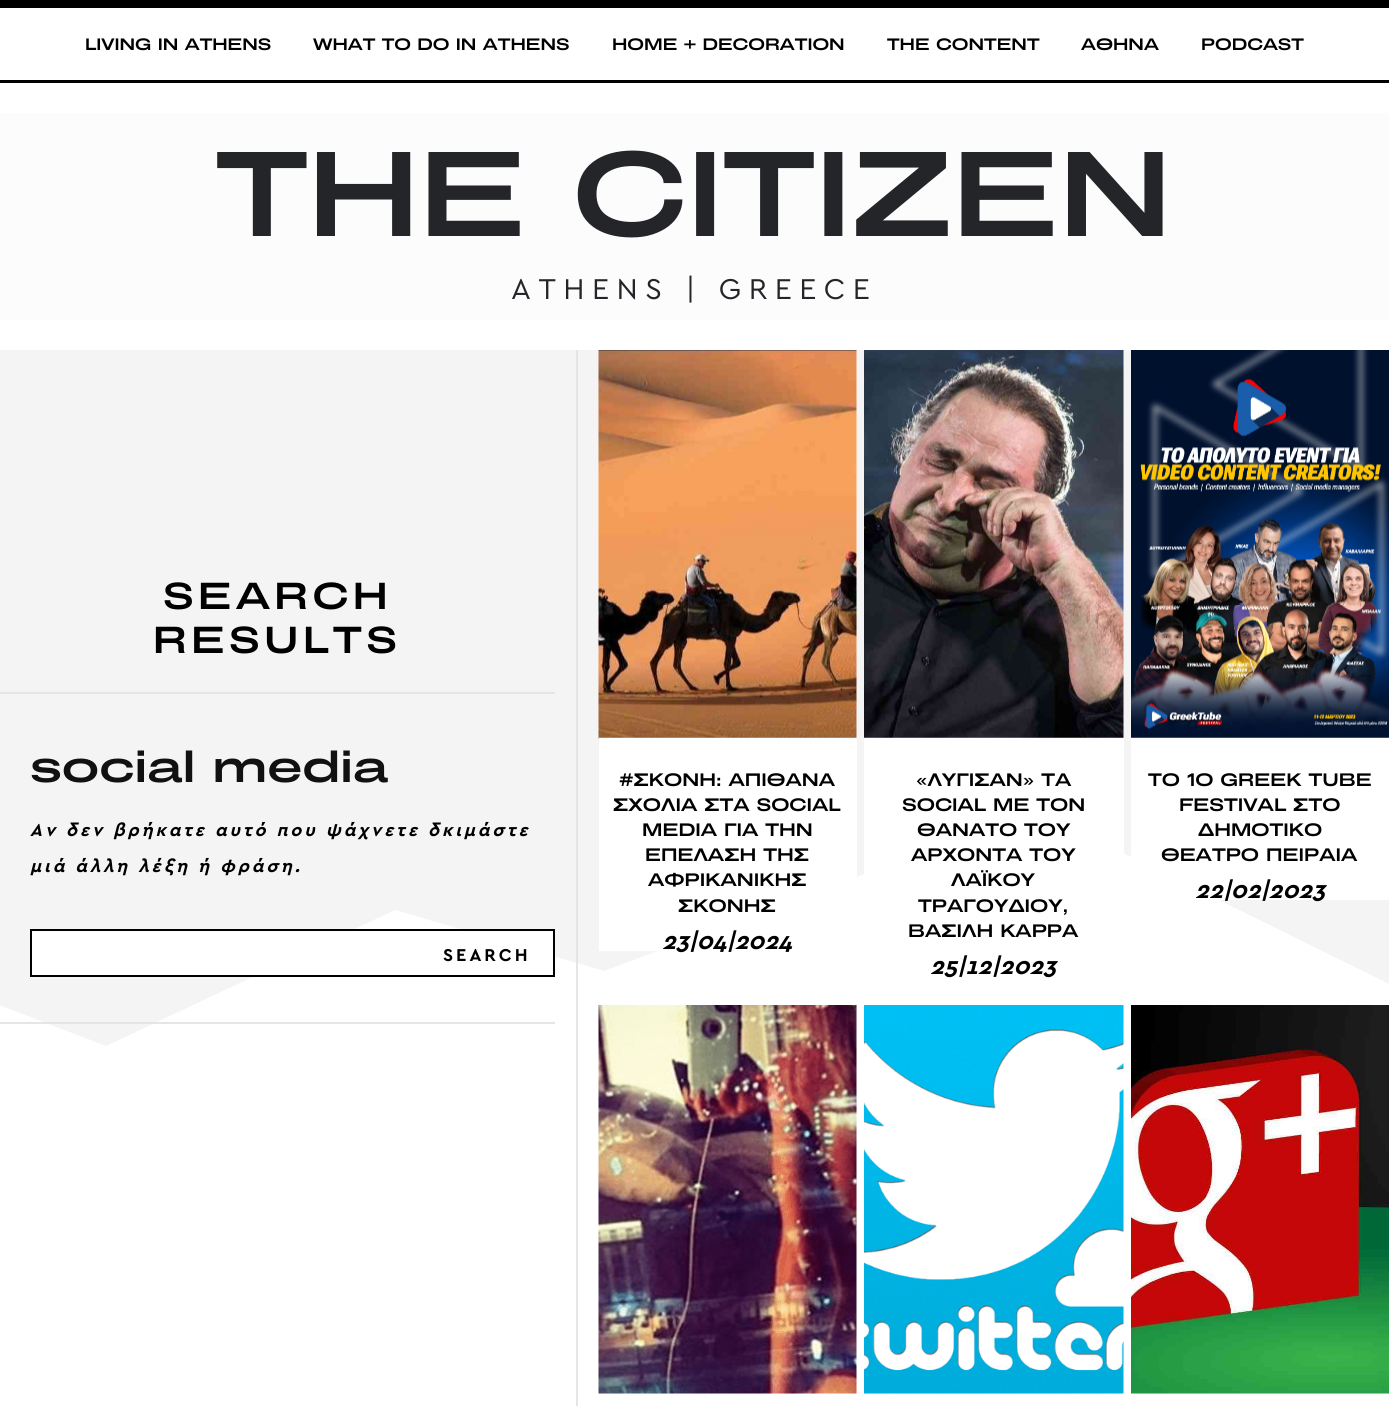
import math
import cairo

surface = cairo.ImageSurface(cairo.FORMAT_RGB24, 1389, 1406)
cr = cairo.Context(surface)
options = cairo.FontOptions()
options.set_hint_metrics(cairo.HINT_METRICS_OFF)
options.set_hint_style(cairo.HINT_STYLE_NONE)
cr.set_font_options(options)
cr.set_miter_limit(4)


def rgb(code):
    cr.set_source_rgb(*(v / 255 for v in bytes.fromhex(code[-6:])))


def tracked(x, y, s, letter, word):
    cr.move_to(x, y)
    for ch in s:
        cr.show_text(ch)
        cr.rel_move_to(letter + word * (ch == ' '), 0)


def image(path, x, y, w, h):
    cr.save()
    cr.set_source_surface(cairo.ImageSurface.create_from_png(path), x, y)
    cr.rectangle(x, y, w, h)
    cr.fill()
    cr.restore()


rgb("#ffffff")
cr.paint()
for x, y, w, h, color in [
    (0, 0, 1389, 8, "#000000"),
    (0, 80, 1389, 3, "#000000"),
    (0, 113, 1389, 207, "#fcfcfc"),
    (0, 350, 1389, 224, "#f4f4f4"),
]:
    rgb(color)
    cr.rectangle(x, y, w, h)
    cr.fill()
cr.new_path()
cr.move_to(-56, 574)
cr.line_to(-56, 984)
cr.line_to(106, 1046)
cr.line_to(395, 910)
cr.line_to(604, 971)
cr.line_to(1036, 810)
cr.line_to(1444, 1011)
cr.line_to(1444, 574)
cr.close_path()
cr.fill()
rgb("#e5e5e5")
cr.rectangle(0, 692, 555, 2)
cr.fill()
cr.rectangle(0, 1022, 555, 2)
cr.fill()
rgb("#ffffff")
cr.rectangle(31, 930, 523, 46)
cr.fill_preserve()
rgb("#000000")
cr.stroke()
rgb("#e5e5e5")
cr.rectangle(576, 350, 2, 1056)
cr.fill()
image("img/1.png", 598, 350, 259, 389)
rgb("#ffffff")
cr.rectangle(599, 738, 258, 213)
cr.fill()
image("img/2.png", 864, 350, 260, 388)
cr.rectangle(864, 738, 260, 136)
cr.fill()
image("img/3.png", 1131, 350, 258, 388)
cr.rectangle(1131, 738, 258, 162)
cr.fill()
image("img/4.png", 598, 1005, 259, 389)
image("img/5.png", 864, 1005, 260, 389)
image("img/6.png", 1131, 1005, 258, 389)
cr.select_font_face("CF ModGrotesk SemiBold")
cr.set_font_size(16.5)
rgb("#000000")
for x, y, s in [
    (85, 50, "LIVING IN ATHENS"),
    (313, 50, "WHAT TO DO IN ATHENS"),
    (612, 50, "HOME + DECORATION"),
    (887, 50, "THE CONTENT"),
    (1081, 50, "ΑΘΗΝΑ"),
    (1201, 50, "PODCAST"),
]:
    cr.move_to(x, y)
    cr.show_text(s)
cr.set_font_size(120)
rgb("#242529")
cr.move_to(216, 236)
cr.show_text("THE CITIZEN")
cr.select_font_face("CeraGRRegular")
cr.set_font_size(30)
tracked(511, 299, "ATHENS | GREECE", 7.5, 0)
cr.select_font_face("CF ModGrotesk SemiBold")
cr.set_font_size(37.5)
rgb("#000000")
tracked(163, 609, "SEARCH", 4.5, 0)
tracked(153, 653, "RESULTS", 4.5, 0)
cr.set_font_size(45)
rgb("#111111")
cr.move_to(30, 782)
cr.show_text("social media")
cr.select_font_face("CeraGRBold", cairo.FONT_SLANT_ITALIC, cairo.FONT_WEIGHT_BOLD)
cr.set_font_size(18)
rgb("#000000")
tracked(30, 836, "Αν δεν βρήκατε αυτό που ψάχνετε δκιμάστε", 3, 0)
tracked(30, 872, "μιά άλλη λέξη ή φράση.", 3, 0)
cr.select_font_face("CeraGRBold", cairo.FONT_SLANT_NORMAL, cairo.FONT_WEIGHT_BOLD)
tracked(443, 961, "SEARCH", 3, 0)
cr.select_font_face("CF ModGrotesk SemiBold")
for x, y, s in [
    (619, 786, "#ΣΚΟΝΗ: ΑΠΙΘΑΝΑ"),
    (613, 811, "ΣΧΟΛΙΑ ΣΤΑ SOCIAL"),
    (642, 836, "MEDIA ΓΙΑ ΤΗΝ"),
    (645, 861, "ΕΠΕΛΑΣΗ ΤΗΣ"),
    (648, 886, "ΑΦΡΙΚΑΝΙΚΗΣ"),
    (678, 912, "ΣΚΟΝΗΣ"),
]:
    cr.move_to(x, y)
    cr.show_text(s)
cr.select_font_face("CeraGRBold", cairo.FONT_SLANT_ITALIC, cairo.FONT_WEIGHT_BOLD)
cr.set_font_size(24)
cr.move_to(662, 949)
cr.show_text("23|04|2024")
cr.select_font_face("CF ModGrotesk SemiBold")
cr.set_font_size(18)
for x, y, s in [
    (916, 786, "«ΛΥΓΙΣΑΝ» ΤΑ"),
    (902, 811, "SOCIAL ΜΕ ΤΟΝ"),
    (917, 836, "ΘΑΝΑΤΟ ΤΟΥ"),
    (911, 861, "ΑΡΧΟΝΤΑ ΤΟΥ"),
    (951, 886, "ΛΑΪΚΟΥ"),
    (918, 912, "ΤΡΑΓΟΥΔΙΟΥ,"),
    (908, 937, "ΒΑΣΙΛΗ ΚΑΡΡΑ"),
]:
    cr.move_to(x, y)
    cr.show_text(s)
cr.select_font_face("CeraGRBold", cairo.FONT_SLANT_ITALIC, cairo.FONT_WEIGHT_BOLD)
cr.set_font_size(24)
cr.move_to(930, 974)
cr.show_text("25|12|2023")
cr.select_font_face("CF ModGrotesk SemiBold")
cr.set_font_size(18)
for x, y, s in [
    (1148, 786, "ΤΟ 1O GREEK TUBE"),
    (1179, 811, "FESTIVAL ΣΤΟ"),
    (1198, 836, "ΔΗΜΟΤΙΚΟ"),
    (1161, 861, "ΘΕΑΤΡΟ ΠΕΙΡΑΙΑ"),
]:
    cr.move_to(x, y)
    cr.show_text(s)
cr.select_font_face("CeraGRBold", cairo.FONT_SLANT_ITALIC, cairo.FONT_WEIGHT_BOLD)
cr.set_font_size(24)
cr.move_to(1195, 898)
cr.show_text("22|02|2023")
surface.write_to_png("page.png")
